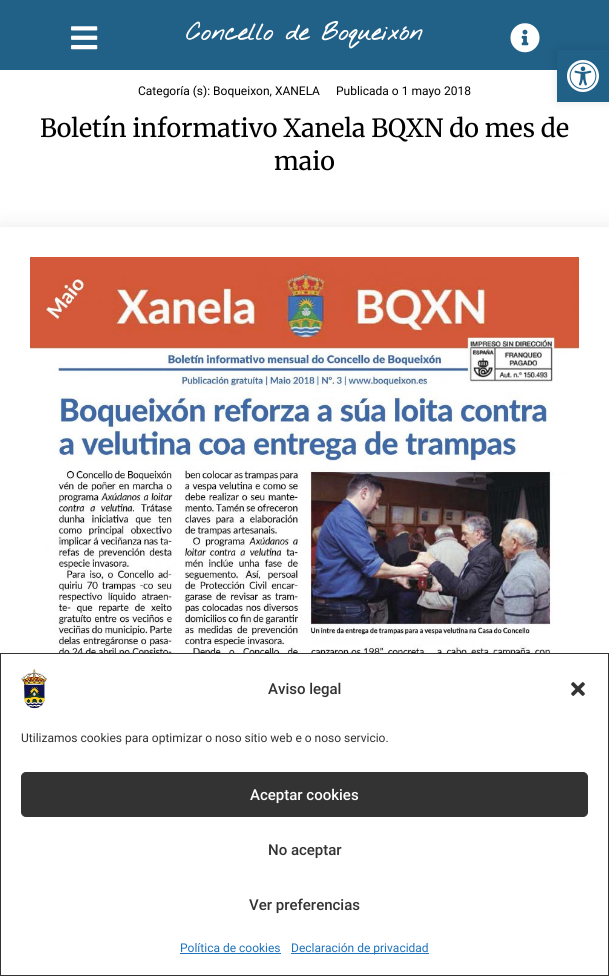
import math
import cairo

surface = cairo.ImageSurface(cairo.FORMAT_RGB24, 609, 976)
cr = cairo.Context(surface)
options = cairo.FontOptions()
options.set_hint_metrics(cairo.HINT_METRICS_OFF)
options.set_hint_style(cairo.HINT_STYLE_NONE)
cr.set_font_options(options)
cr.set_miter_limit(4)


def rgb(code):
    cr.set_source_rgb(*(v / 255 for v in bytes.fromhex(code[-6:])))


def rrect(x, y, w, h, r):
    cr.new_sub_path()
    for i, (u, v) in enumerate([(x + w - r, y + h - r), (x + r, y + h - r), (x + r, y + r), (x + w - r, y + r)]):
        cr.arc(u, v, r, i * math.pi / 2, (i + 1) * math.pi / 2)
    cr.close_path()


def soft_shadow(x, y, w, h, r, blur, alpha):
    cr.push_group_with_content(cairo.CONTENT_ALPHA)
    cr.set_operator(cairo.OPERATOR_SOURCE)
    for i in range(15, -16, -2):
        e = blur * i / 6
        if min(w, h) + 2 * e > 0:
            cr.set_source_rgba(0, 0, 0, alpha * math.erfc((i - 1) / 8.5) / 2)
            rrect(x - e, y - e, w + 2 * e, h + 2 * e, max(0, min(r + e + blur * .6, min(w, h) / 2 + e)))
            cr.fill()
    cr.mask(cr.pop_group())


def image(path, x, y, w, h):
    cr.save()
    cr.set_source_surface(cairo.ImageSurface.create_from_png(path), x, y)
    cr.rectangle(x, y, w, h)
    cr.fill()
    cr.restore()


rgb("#216087")
cr.paint()
image("img/1.png", 71, 26, 27, 24)
image("img/2.png", 510, 23, 30, 30)
rgb("#ffffff")
cr.rectangle(0, 70, 609, 157)
cr.fill()
rgb("#000000")
soft_shadow(0, 227, 609, 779, 0, 10, 0.09)
rgb("#ffffff")
cr.rectangle(0, 227, 609, 426)
cr.fill()
image("img/3.png", 30, 257, 549, 396)
rgb("#000000")
soft_shadow(557, 50, 52, 52, 0, 5, 0.1)
rgb("#216087")
cr.rectangle(557, 50, 52, 52)
cr.fill()
image("img/4.png", 567, 60, 32, 32)
rgb("#ffffff")
cr.rectangle(0.5, 653.5, 608, 322)
cr.fill_preserve()
rgb("#333333")
cr.set_line_width(1)
cr.stroke()
image("img/5.png", 21, 669, 27, 40)
image("img/6.png", 571, 682, 14, 14)
rrect(21.5, 772.5, 566, 44, 4.5)
cr.fill_preserve()
cr.stroke()
rgb("#1e73be")
cr.rectangle(180, 953, 101, 1)
cr.fill()
cr.rectangle(291, 953, 138, 1)
cr.fill()
cr.select_font_face("Nothing You Could Do", cairo.FONT_SLANT_NORMAL, cairo.FONT_WEIGHT_BOLD)
cr.set_font_size(24)
rgb("#ffffff")
cr.move_to(186, 40)
cr.show_text("Concello de Boqueixón")
cr.select_font_face("Roboto")
cr.set_font_size(12)
rgb("#000000")
cr.move_to(138, 95)
cr.show_text("Categoría (s): Boqueixon, XANELA")
cr.move_to(336, 95)
cr.show_text("Publicada o 1 mayo 2018")
cr.select_font_face("Merriweather")
cr.set_font_size(25)
cr.move_to(40, 137)
cr.show_text("Boletín informativo Xanela BQXN do mes de")
cr.move_to(274, 170)
cr.show_text("maio")
cr.select_font_face("Roboto Medium")
cr.set_font_size(15)
rgb("#333333")
cr.move_to(268, 694)
cr.show_text("Aviso legal")
cr.select_font_face("Roboto")
cr.set_font_size(12)
cr.move_to(21, 742)
cr.show_text("Utilizamos cookies para optimizar o noso sitio web e o noso servicio.")
cr.select_font_face("Roboto Medium")
cr.set_font_size(15)
rgb("#ffffff")
cr.move_to(250, 800)
cr.show_text("Aceptar cookies")
rgb("#333333")
cr.move_to(268, 855)
cr.show_text("No aceptar")
cr.move_to(249, 910)
cr.show_text("Ver preferencias")
cr.select_font_face("Roboto")
cr.set_font_size(12)
rgb("#1e73be")
cr.move_to(180, 952)
cr.show_text("Política de cookies")
cr.move_to(291, 952)
cr.show_text("Declaración de privacidad")
surface.write_to_png("page.png")
